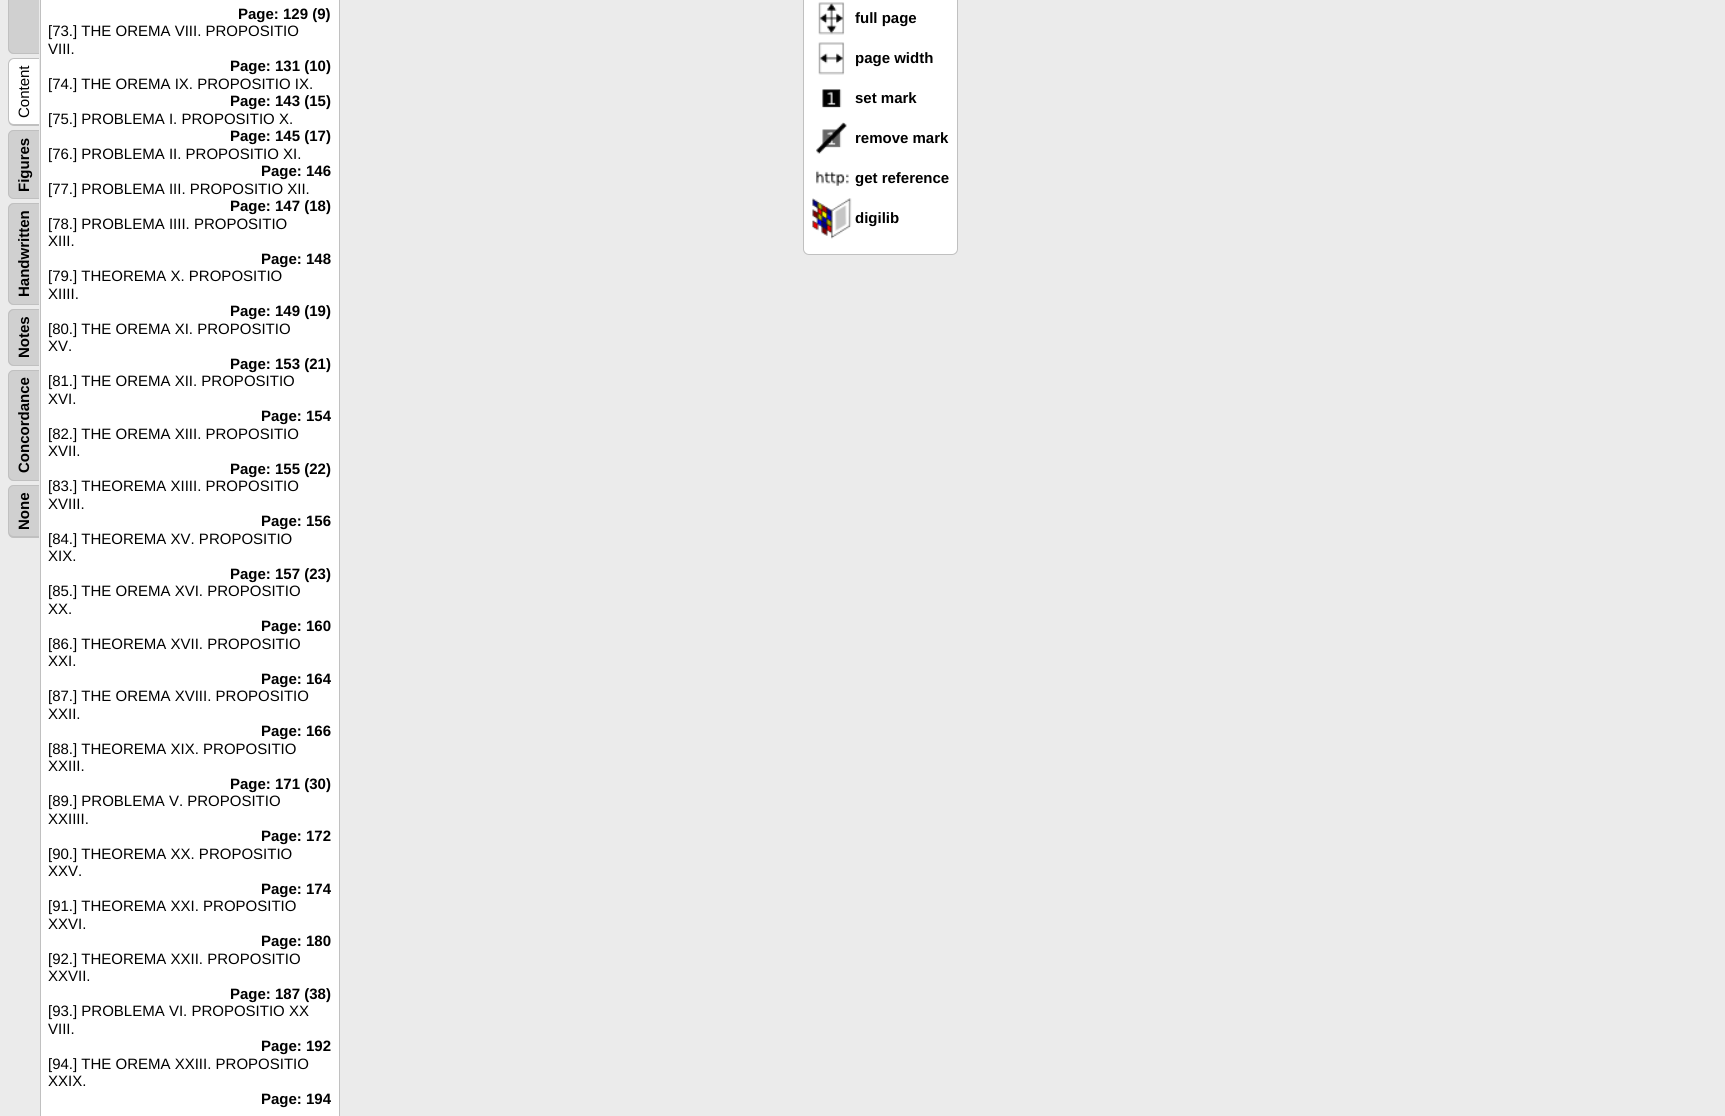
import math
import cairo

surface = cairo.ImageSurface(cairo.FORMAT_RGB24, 1725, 1116)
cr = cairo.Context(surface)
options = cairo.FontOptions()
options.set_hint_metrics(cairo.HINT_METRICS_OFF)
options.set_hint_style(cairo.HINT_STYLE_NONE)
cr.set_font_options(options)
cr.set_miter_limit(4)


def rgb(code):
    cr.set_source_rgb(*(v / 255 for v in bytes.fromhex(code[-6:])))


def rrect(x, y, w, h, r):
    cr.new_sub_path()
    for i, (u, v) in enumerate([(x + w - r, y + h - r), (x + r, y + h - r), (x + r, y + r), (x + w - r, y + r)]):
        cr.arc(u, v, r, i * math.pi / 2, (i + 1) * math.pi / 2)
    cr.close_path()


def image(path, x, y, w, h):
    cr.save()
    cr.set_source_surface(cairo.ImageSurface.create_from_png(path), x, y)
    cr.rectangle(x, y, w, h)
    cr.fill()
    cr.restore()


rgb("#ebebeb")
cr.paint()
rgb("#d0d0d0")
cr.new_path()
cr.move_to(8, 48)
cr.line_to(8, -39)
cr.curve_to(8, -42, 10, -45, 14, -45)
cr.line_to(39, -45)
cr.line_to(39, 54)
cr.line_to(14, 54)
cr.curve_to(10, 54, 8, 51, 8, 48)
cr.close_path()
cr.fill()
rgb("#c0c0c0")
cr.set_fill_rule(cairo.FILL_RULE_EVEN_ODD)
cr.new_path()
cr.move_to(8, 48)
cr.line_to(8, -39)
cr.curve_to(8, -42, 10, -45, 14, -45)
cr.line_to(39, -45)
cr.line_to(39, 54)
cr.line_to(14, 54)
cr.curve_to(10, 54, 8, 51, 8, 48)
cr.close_path()
cr.move_to(9, 48)
cr.line_to(9, -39)
cr.curve_to(9, -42, 11, -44, 14, -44)
cr.line_to(39, -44)
cr.line_to(39, 53)
cr.line_to(14, 53)
cr.curve_to(11, 53, 9, 50, 9, 48)
cr.close_path()
cr.fill()
rgb("#ffffff")
cr.set_fill_rule(cairo.FILL_RULE_WINDING)
cr.new_path()
cr.move_to(8, 119)
cr.line_to(8, 64)
cr.curve_to(8, 61, 10, 58, 14, 58)
cr.line_to(39, 58)
cr.line_to(39, 126)
cr.line_to(14, 126)
cr.curve_to(10, 126, 8, 123, 8, 119)
cr.close_path()
cr.fill()
rgb("#c0c0c0")
cr.set_fill_rule(cairo.FILL_RULE_EVEN_ODD)
cr.new_path()
cr.move_to(8, 119)
cr.line_to(8, 64)
cr.curve_to(8, 61, 10, 58, 14, 58)
cr.line_to(39, 58)
cr.line_to(39, 126)
cr.line_to(14, 126)
cr.curve_to(10, 126, 8, 123, 8, 119)
cr.close_path()
cr.move_to(9, 119)
cr.line_to(9, 64)
cr.curve_to(9, 62, 11, 59, 14, 59)
cr.line_to(39, 59)
cr.line_to(39, 124)
cr.line_to(14, 124)
cr.curve_to(11, 124, 9, 122, 9, 119)
cr.close_path()
cr.fill()
rgb("#d0d0d0")
cr.set_fill_rule(cairo.FILL_RULE_WINDING)
cr.new_path()
cr.move_to(8, 193)
cr.line_to(8, 136)
cr.curve_to(8, 133, 10, 130, 14, 130)
cr.line_to(39, 130)
cr.line_to(39, 199)
cr.line_to(14, 199)
cr.curve_to(10, 199, 8, 196, 8, 193)
cr.close_path()
cr.fill()
rgb("#c0c0c0")
cr.set_fill_rule(cairo.FILL_RULE_EVEN_ODD)
cr.new_path()
cr.move_to(8, 193)
cr.line_to(8, 136)
cr.curve_to(8, 133, 10, 130, 14, 130)
cr.line_to(39, 130)
cr.line_to(39, 199)
cr.line_to(14, 199)
cr.curve_to(10, 199, 8, 196, 8, 193)
cr.close_path()
cr.move_to(9, 193)
cr.line_to(9, 136)
cr.curve_to(9, 133, 11, 131, 14, 131)
cr.line_to(39, 131)
cr.line_to(39, 198)
cr.line_to(14, 198)
cr.curve_to(11, 198, 9, 196, 9, 193)
cr.close_path()
cr.fill()
rgb("#d0d0d0")
cr.set_fill_rule(cairo.FILL_RULE_WINDING)
cr.new_path()
cr.move_to(8, 299)
cr.line_to(8, 209)
cr.curve_to(8, 206, 10, 203, 14, 203)
cr.line_to(39, 203)
cr.line_to(39, 305)
cr.line_to(14, 305)
cr.curve_to(10, 305, 8, 302, 8, 299)
cr.close_path()
cr.fill()
rgb("#c0c0c0")
cr.set_fill_rule(cairo.FILL_RULE_EVEN_ODD)
cr.new_path()
cr.move_to(8, 299)
cr.line_to(8, 209)
cr.curve_to(8, 206, 10, 203, 14, 203)
cr.line_to(39, 203)
cr.line_to(39, 305)
cr.line_to(14, 305)
cr.curve_to(10, 305, 8, 302, 8, 299)
cr.close_path()
cr.move_to(9, 299)
cr.line_to(9, 209)
cr.curve_to(9, 207, 11, 204, 14, 204)
cr.line_to(39, 204)
cr.line_to(39, 304)
cr.line_to(14, 304)
cr.curve_to(11, 304, 9, 301, 9, 299)
cr.close_path()
cr.fill()
rgb("#d0d0d0")
cr.set_fill_rule(cairo.FILL_RULE_WINDING)
cr.new_path()
cr.move_to(8, 360)
cr.line_to(8, 315)
cr.curve_to(8, 312, 10, 309, 14, 309)
cr.line_to(39, 309)
cr.line_to(39, 366)
cr.line_to(14, 366)
cr.curve_to(10, 366, 8, 363, 8, 360)
cr.close_path()
cr.fill()
rgb("#c0c0c0")
cr.set_fill_rule(cairo.FILL_RULE_EVEN_ODD)
cr.new_path()
cr.move_to(8, 360)
cr.line_to(8, 315)
cr.curve_to(8, 312, 10, 309, 14, 309)
cr.line_to(39, 309)
cr.line_to(39, 366)
cr.line_to(14, 366)
cr.curve_to(10, 366, 8, 363, 8, 360)
cr.close_path()
cr.move_to(9, 360)
cr.line_to(9, 315)
cr.curve_to(9, 313, 11, 310, 14, 310)
cr.line_to(39, 310)
cr.line_to(39, 365)
cr.line_to(14, 365)
cr.curve_to(11, 365, 9, 362, 9, 360)
cr.close_path()
cr.fill()
rgb("#d0d0d0")
cr.set_fill_rule(cairo.FILL_RULE_WINDING)
cr.new_path()
cr.move_to(8, 475)
cr.line_to(8, 376)
cr.curve_to(8, 373, 10, 370, 14, 370)
cr.line_to(39, 370)
cr.line_to(39, 481)
cr.line_to(14, 481)
cr.curve_to(10, 481, 8, 478, 8, 475)
cr.close_path()
cr.fill()
rgb("#c0c0c0")
cr.set_fill_rule(cairo.FILL_RULE_EVEN_ODD)
cr.new_path()
cr.move_to(8, 475)
cr.line_to(8, 376)
cr.curve_to(8, 373, 10, 370, 14, 370)
cr.line_to(39, 370)
cr.line_to(39, 481)
cr.line_to(14, 481)
cr.curve_to(10, 481, 8, 478, 8, 475)
cr.close_path()
cr.move_to(9, 475)
cr.line_to(9, 376)
cr.curve_to(9, 373, 11, 371, 14, 371)
cr.line_to(39, 371)
cr.line_to(39, 480)
cr.line_to(14, 480)
cr.curve_to(11, 480, 9, 477, 9, 475)
cr.close_path()
cr.fill()
rgb("#d0d0d0")
cr.set_fill_rule(cairo.FILL_RULE_WINDING)
cr.new_path()
cr.move_to(8, 531)
cr.line_to(8, 491)
cr.curve_to(8, 488, 10, 485, 14, 485)
cr.line_to(39, 485)
cr.line_to(39, 538)
cr.line_to(14, 538)
cr.curve_to(10, 538, 8, 535, 8, 531)
cr.close_path()
cr.fill()
rgb("#c0c0c0")
cr.set_fill_rule(cairo.FILL_RULE_EVEN_ODD)
cr.new_path()
cr.move_to(8, 531)
cr.line_to(8, 491)
cr.curve_to(8, 488, 10, 485, 14, 485)
cr.line_to(39, 485)
cr.line_to(39, 538)
cr.line_to(14, 538)
cr.curve_to(10, 538, 8, 535, 8, 531)
cr.close_path()
cr.move_to(9, 531)
cr.line_to(9, 491)
cr.curve_to(9, 488, 11, 486, 14, 486)
cr.line_to(39, 486)
cr.line_to(39, 536)
cr.line_to(14, 536)
cr.curve_to(11, 536, 9, 534, 9, 531)
cr.close_path()
cr.fill()
rgb("#ffffff")
cr.rectangle(40.5, -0.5, 299, 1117)
cr.fill_preserve()
rgb("#c0c0c0")
cr.set_line_width(1)
cr.stroke()
rgb("#ffffff")
rrect(803.5, -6.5, 154, 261, 5.5)
cr.fill_preserve()
rgb("#c0c0c0")
cr.stroke()
image("img/1.png", 818, 2, 27, 33)
image("img/2.png", 818, 42, 27, 33)
image("img/3.png", 822, 89, 20, 19)
image("img/4.png", 816, 122, 31, 32)
image("img/5.png", 816, 170, 33, 16)
image("img/6.png", 812, 198, 40, 41)
cr.select_font_face("Liberation Sans")
cr.set_font_size(15)
rgb("#000000")
cr.save()
cr.translate(29, 118)
cr.rotate(-90 * math.pi / 180)
cr.move_to(0, 0)
cr.show_text("Content")
cr.restore()
cr.select_font_face("Liberation Sans", cairo.FONT_SLANT_NORMAL, cairo.FONT_WEIGHT_BOLD)
cr.save()
cr.translate(29, 192)
cr.rotate(-90 * math.pi / 180)
cr.move_to(0, 0)
cr.show_text("Figures")
cr.restore()
cr.save()
cr.translate(29, 297)
cr.rotate(-90 * math.pi / 180)
cr.move_to(0, 0)
cr.show_text("Handwritten")
cr.restore()
cr.save()
cr.translate(29, 358)
cr.rotate(-90 * math.pi / 180)
cr.move_to(0, 0)
cr.show_text("Notes")
cr.restore()
cr.save()
cr.translate(29, 473)
cr.rotate(-90 * math.pi / 180)
cr.move_to(0, 0)
cr.show_text("Concordance")
cr.restore()
cr.save()
cr.translate(29, 530)
cr.rotate(-90 * math.pi / 180)
cr.move_to(0, 0)
cr.show_text("None")
cr.restore()
cr.move_to(238, 19)
cr.show_text("Page: 129 (9)")
cr.select_font_face("Liberation Sans")
cr.move_to(48, 36)
cr.show_text("[73.] THE OREMA VIII. PROPOSITIO")
cr.move_to(48, 54)
cr.show_text("VIII.")
cr.select_font_face("Liberation Sans", cairo.FONT_SLANT_NORMAL, cairo.FONT_WEIGHT_BOLD)
cr.move_to(230, 71)
cr.show_text("Page: 131 (10)")
cr.select_font_face("Liberation Sans")
cr.move_to(48, 89)
cr.show_text("[74.] THE OREMA IX. PROPOSITIO IX.")
cr.select_font_face("Liberation Sans", cairo.FONT_SLANT_NORMAL, cairo.FONT_WEIGHT_BOLD)
cr.move_to(230, 106)
cr.show_text("Page: 143 (15)")
cr.select_font_face("Liberation Sans")
cr.move_to(48, 124)
cr.show_text("[75.] PROBLEMA I. PROPOSITIO X.")
cr.select_font_face("Liberation Sans", cairo.FONT_SLANT_NORMAL, cairo.FONT_WEIGHT_BOLD)
cr.move_to(230, 141)
cr.show_text("Page: 145 (17)")
cr.select_font_face("Liberation Sans")
cr.move_to(48, 159)
cr.show_text("[76.] PROBLEMA II. PROPOSITIO XI.")
cr.select_font_face("Liberation Sans", cairo.FONT_SLANT_NORMAL, cairo.FONT_WEIGHT_BOLD)
cr.move_to(261, 176)
cr.show_text("Page: 146")
cr.select_font_face("Liberation Sans")
cr.move_to(48, 194)
cr.show_text("[77.] PROBLEMA III. PROPOSITIO XII.")
cr.select_font_face("Liberation Sans", cairo.FONT_SLANT_NORMAL, cairo.FONT_WEIGHT_BOLD)
cr.move_to(230, 211)
cr.show_text("Page: 147 (18)")
cr.select_font_face("Liberation Sans")
cr.move_to(48, 229)
cr.show_text("[78.] PROBLEMA IIII. PROPOSITIO")
cr.move_to(48, 246)
cr.show_text("XIII.")
cr.select_font_face("Liberation Sans", cairo.FONT_SLANT_NORMAL, cairo.FONT_WEIGHT_BOLD)
cr.move_to(261, 264)
cr.show_text("Page: 148")
cr.select_font_face("Liberation Sans")
cr.move_to(48, 281)
cr.show_text("[79.] THEOREMA X. PROPOSITIO")
cr.move_to(48, 299)
cr.show_text("XIIII.")
cr.select_font_face("Liberation Sans", cairo.FONT_SLANT_NORMAL, cairo.FONT_WEIGHT_BOLD)
cr.move_to(230, 316)
cr.show_text("Page: 149 (19)")
cr.select_font_face("Liberation Sans")
cr.move_to(48, 334)
cr.show_text("[80.] THE OREMA XI. PROPOSITIO")
cr.move_to(48, 351)
cr.show_text("XV.")
cr.select_font_face("Liberation Sans", cairo.FONT_SLANT_NORMAL, cairo.FONT_WEIGHT_BOLD)
cr.move_to(230, 369)
cr.show_text("Page: 153 (21)")
cr.select_font_face("Liberation Sans")
cr.move_to(48, 386)
cr.show_text("[81.] THE OREMA XII. PROPOSITIO")
cr.move_to(48, 404)
cr.show_text("XVI.")
cr.select_font_face("Liberation Sans", cairo.FONT_SLANT_NORMAL, cairo.FONT_WEIGHT_BOLD)
cr.move_to(261, 421)
cr.show_text("Page: 154")
cr.select_font_face("Liberation Sans")
cr.move_to(48, 439)
cr.show_text("[82.] THE OREMA XIII. PROPOSITIO")
cr.move_to(48, 456)
cr.show_text("XVII.")
cr.select_font_face("Liberation Sans", cairo.FONT_SLANT_NORMAL, cairo.FONT_WEIGHT_BOLD)
cr.move_to(230, 474)
cr.show_text("Page: 155 (22)")
cr.select_font_face("Liberation Sans")
cr.move_to(48, 491)
cr.show_text("[83.] THEOREMA XIIII. PROPOSITIO")
cr.move_to(48, 509)
cr.show_text("XVIII.")
cr.select_font_face("Liberation Sans", cairo.FONT_SLANT_NORMAL, cairo.FONT_WEIGHT_BOLD)
cr.move_to(261, 526)
cr.show_text("Page: 156")
cr.select_font_face("Liberation Sans")
cr.move_to(48, 544)
cr.show_text("[84.] THEOREMA XV. PROPOSITIO")
cr.move_to(48, 561)
cr.show_text("XIX.")
cr.select_font_face("Liberation Sans", cairo.FONT_SLANT_NORMAL, cairo.FONT_WEIGHT_BOLD)
cr.move_to(230, 579)
cr.show_text("Page: 157 (23)")
cr.select_font_face("Liberation Sans")
cr.move_to(48, 596)
cr.show_text("[85.] THE OREMA XVI. PROPOSITIO")
cr.move_to(48, 614)
cr.show_text("XX.")
cr.select_font_face("Liberation Sans", cairo.FONT_SLANT_NORMAL, cairo.FONT_WEIGHT_BOLD)
cr.move_to(261, 631)
cr.show_text("Page: 160")
cr.select_font_face("Liberation Sans")
cr.move_to(48, 649)
cr.show_text("[86.] THEOREMA XVII. PROPOSITIO")
cr.move_to(48, 666)
cr.show_text("XXI.")
cr.select_font_face("Liberation Sans", cairo.FONT_SLANT_NORMAL, cairo.FONT_WEIGHT_BOLD)
cr.move_to(261, 684)
cr.show_text("Page: 164")
cr.select_font_face("Liberation Sans")
cr.move_to(48, 701)
cr.show_text("[87.] THE OREMA XVIII. PROPOSITIO")
cr.move_to(48, 719)
cr.show_text("XXII.")
cr.select_font_face("Liberation Sans", cairo.FONT_SLANT_NORMAL, cairo.FONT_WEIGHT_BOLD)
cr.move_to(261, 736)
cr.show_text("Page: 166")
cr.select_font_face("Liberation Sans")
cr.move_to(48, 754)
cr.show_text("[88.] THEOREMA XIX. PROPOSITIO")
cr.move_to(48, 771)
cr.show_text("XXIII.")
cr.select_font_face("Liberation Sans", cairo.FONT_SLANT_NORMAL, cairo.FONT_WEIGHT_BOLD)
cr.move_to(230, 789)
cr.show_text("Page: 171 (30)")
cr.select_font_face("Liberation Sans")
cr.move_to(48, 806)
cr.show_text("[89.] PROBLEMA V. PROPOSITIO")
cr.move_to(48, 824)
cr.show_text("XXIIII.")
cr.select_font_face("Liberation Sans", cairo.FONT_SLANT_NORMAL, cairo.FONT_WEIGHT_BOLD)
cr.move_to(261, 841)
cr.show_text("Page: 172")
cr.select_font_face("Liberation Sans")
cr.move_to(48, 859)
cr.show_text("[90.] THEOREMA XX. PROPOSITIO")
cr.move_to(48, 876)
cr.show_text("XXV.")
cr.select_font_face("Liberation Sans", cairo.FONT_SLANT_NORMAL, cairo.FONT_WEIGHT_BOLD)
cr.move_to(261, 894)
cr.show_text("Page: 174")
cr.select_font_face("Liberation Sans")
cr.move_to(48, 911)
cr.show_text("[91.] THEOREMA XXI. PROPOSITIO")
cr.move_to(48, 929)
cr.show_text("XXVI.")
cr.select_font_face("Liberation Sans", cairo.FONT_SLANT_NORMAL, cairo.FONT_WEIGHT_BOLD)
cr.move_to(261, 946)
cr.show_text("Page: 180")
cr.select_font_face("Liberation Sans")
cr.move_to(48, 964)
cr.show_text("[92.] THEOREMA XXII. PROPOSITIO")
cr.move_to(48, 981)
cr.show_text("XXVII.")
cr.select_font_face("Liberation Sans", cairo.FONT_SLANT_NORMAL, cairo.FONT_WEIGHT_BOLD)
cr.move_to(230, 999)
cr.show_text("Page: 187 (38)")
cr.select_font_face("Liberation Sans")
cr.move_to(48, 1016)
cr.show_text("[93.] PROBLEMA VI. PROPOSITIO XX")
cr.move_to(48, 1034)
cr.show_text("VIII.")
cr.select_font_face("Liberation Sans", cairo.FONT_SLANT_NORMAL, cairo.FONT_WEIGHT_BOLD)
cr.move_to(261, 1051)
cr.show_text("Page: 192")
cr.select_font_face("Liberation Sans")
cr.move_to(48, 1069)
cr.show_text("[94.] THE OREMA XXIII. PROPOSITIO")
cr.move_to(48, 1086)
cr.show_text("XXIX.")
cr.select_font_face("Liberation Sans", cairo.FONT_SLANT_NORMAL, cairo.FONT_WEIGHT_BOLD)
for x, y, s in [
    (261, 1104, "Page: 194"),
    (855, 23, "full page"),
    (855, 63, "page width"),
    (855, 103, "set mark"),
    (855, 143, "remove mark"),
    (855, 183, "get reference"),
    (855, 223, "digilib"),
]:
    cr.move_to(x, y)
    cr.show_text(s)
surface.write_to_png("page.png")
